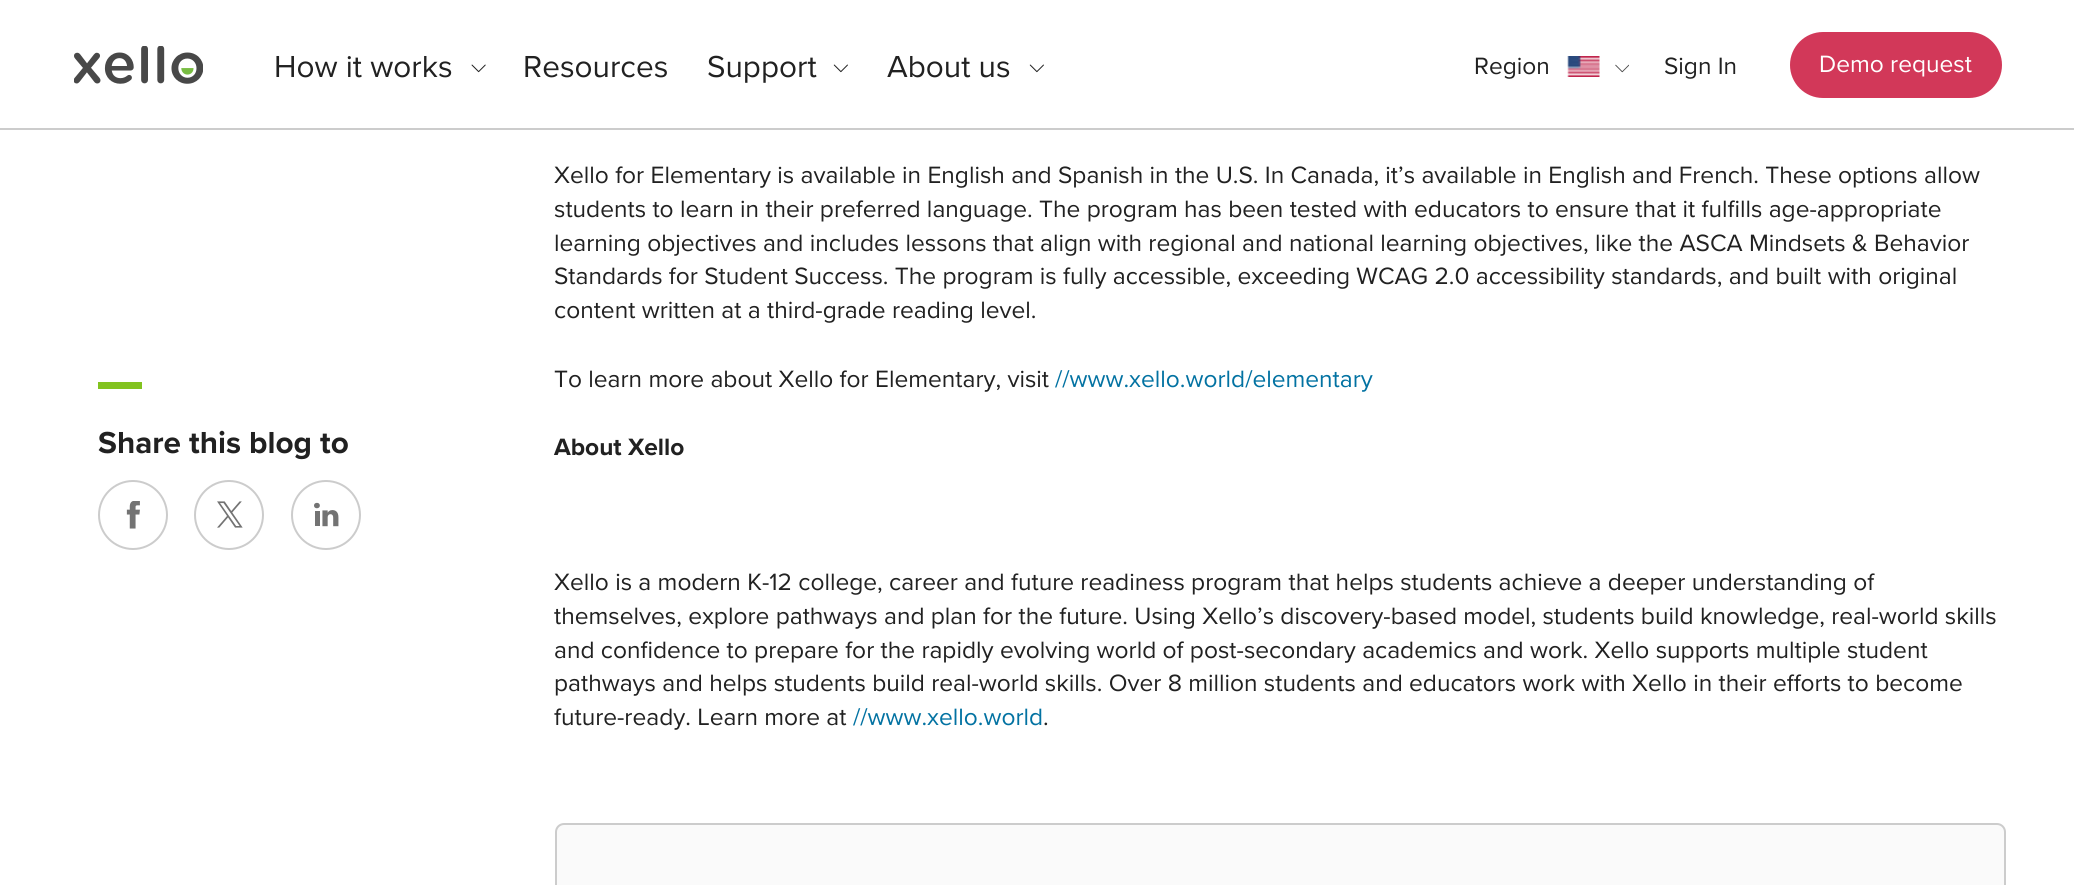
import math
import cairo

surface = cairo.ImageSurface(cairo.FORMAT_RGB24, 2074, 885)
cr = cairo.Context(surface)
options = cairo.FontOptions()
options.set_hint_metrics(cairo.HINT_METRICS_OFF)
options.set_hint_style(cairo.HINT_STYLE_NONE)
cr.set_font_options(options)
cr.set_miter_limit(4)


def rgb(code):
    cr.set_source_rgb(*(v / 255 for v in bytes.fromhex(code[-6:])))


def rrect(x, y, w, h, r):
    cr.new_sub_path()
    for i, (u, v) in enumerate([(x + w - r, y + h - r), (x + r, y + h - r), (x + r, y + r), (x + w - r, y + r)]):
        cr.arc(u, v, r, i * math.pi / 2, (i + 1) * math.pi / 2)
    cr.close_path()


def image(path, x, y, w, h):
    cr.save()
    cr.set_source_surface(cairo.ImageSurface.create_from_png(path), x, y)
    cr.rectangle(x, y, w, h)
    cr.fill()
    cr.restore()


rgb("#ffffff")
cr.paint()
rgb("#cccccc")
cr.rectangle(0, 128, 2074, 2)
cr.fill()
image("img/1.png", 74, 46, 129, 38)
image("img/2.png", 471, 64, 15, 9)
image("img/3.png", 833, 64, 15, 9)
image("img/3.png", 1029, 64, 15, 9)
image("img/4.png", 1567, 56, 33, 21)
image("img/5.png", 1615, 64, 14, 9)
rgb("#d23859")
rrect(1791, 33, 210, 64, 32)
cr.fill_preserve()
cr.stroke()
rgb("#82c31f")
cr.rectangle(98, 382, 44, 7)
cr.fill()
cr.arc(133, 515, 34, 0, 2 * math.pi)
rgb("#cccccc")
cr.stroke()
image("img/6.png", 126, 501, 14, 28)
cr.arc(229, 515, 34, 0, 2 * math.pi)
cr.stroke()
image("img/7.png", 217, 501, 26, 27)
cr.arc(326, 515, 34, 0, 2 * math.pi)
cr.stroke()
image("img/8.png", 314, 502, 25, 25)
rgb("#fafafa")
rrect(556, 824, 1449, 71, 8)
cr.fill_preserve()
rgb("#cccccc")
cr.stroke()
cr.select_font_face("Proxima Nova")
cr.set_font_size(31.5)
rgb("#212121")
for x, y, s in [
    (274, 77, "How it works"),
    (523, 77, "Resources"),
    (707, 77, "Support"),
    (887, 77, "About us"),
]:
    cr.move_to(x, y)
    cr.show_text(s)
cr.set_font_size(24.5)
cr.move_to(1474, 74)
cr.show_text("Region")
cr.move_to(1664, 74)
cr.show_text("Sign In")
rgb("#ffffff")
cr.move_to(1819, 72)
cr.show_text("Demo request")
cr.select_font_face("Proxima Nova", cairo.FONT_SLANT_NORMAL, cairo.FONT_WEIGHT_BOLD)
cr.set_font_size(31.5)
rgb("#212121")
cr.move_to(98, 453)
cr.show_text("Share this blog to")
cr.select_font_face("Proxima Nova")
cr.set_font_size(24.5)
for x, y, s in [
    (554, 183, "Xello for Elementary is available in English and Spanish in the U.S. In Canada, it’s available in English and French. These options allow"),
    (554, 217, "students to learn in their preferred language. The program has been tested with educators to ensure that it fulfills age-appropriate"),
    (554, 251, "learning objectives and includes lessons that align with regional and national learning objectives, like the ASCA Mindsets & Behavior"),
    (554, 284, "Standards for Student Success. The program is fully accessible, exceeding WCAG 2.0 accessibility standards, and built with original"),
    (554, 318, "content written at a third-grade reading level."),
    (554, 387, "To learn more about Xello for Elementary, visit"),
]:
    cr.move_to(x, y)
    cr.show_text(s)
rgb("#0272a2")
cr.move_to(1055, 387)
cr.show_text("//www.xello.world/elementary")
cr.select_font_face("Proxima Nova", cairo.FONT_SLANT_NORMAL, cairo.FONT_WEIGHT_BOLD)
rgb("#212121")
cr.move_to(554, 455)
cr.show_text("About Xello")
cr.select_font_face("Proxima Nova")
for x, y, s in [
    (554, 590, "Xello is a modern K-12 college, career and future readiness program that helps students achieve a deeper understanding of"),
    (554, 624, "themselves, explore pathways and plan for the future. Using Xello’s discovery-based model, students build knowledge, real-world skills"),
    (554, 658, "and confidence to prepare for the rapidly evolving world of post-secondary academics and work. Xello supports multiple student"),
    (554, 691, "pathways and helps students build real-world skills. Over 8 million students and educators work with Xello in their efforts to become"),
    (554, 725, "future-ready. Learn more at"),
]:
    cr.move_to(x, y)
    cr.show_text(s)
rgb("#0272a2")
cr.move_to(853, 725)
cr.show_text("//www.xello.world")
rgb("#212121")
cr.move_to(1043, 725)
cr.show_text(".")
surface.write_to_png("page.png")
